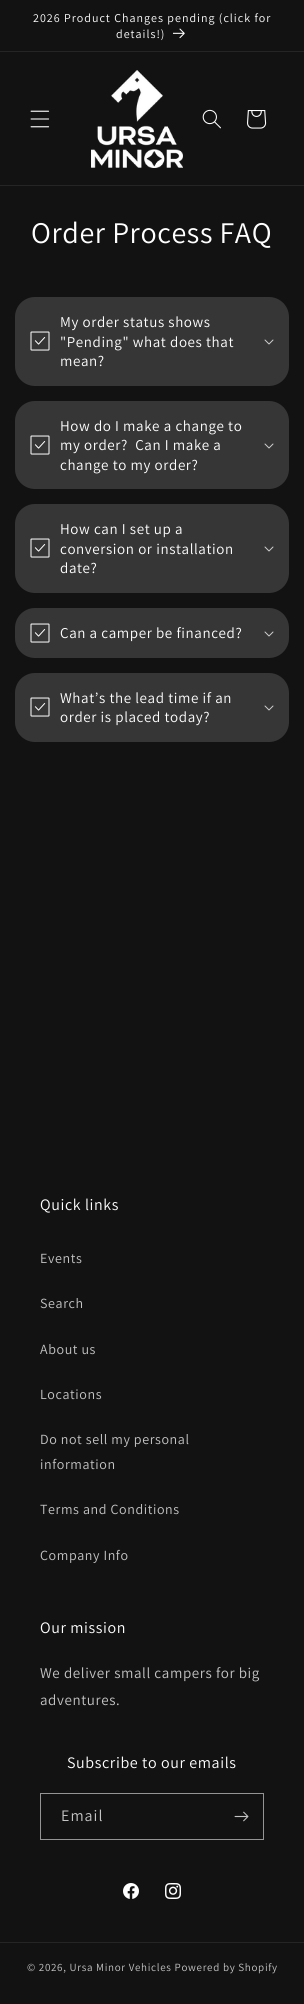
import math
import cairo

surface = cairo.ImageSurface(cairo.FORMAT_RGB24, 304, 2004)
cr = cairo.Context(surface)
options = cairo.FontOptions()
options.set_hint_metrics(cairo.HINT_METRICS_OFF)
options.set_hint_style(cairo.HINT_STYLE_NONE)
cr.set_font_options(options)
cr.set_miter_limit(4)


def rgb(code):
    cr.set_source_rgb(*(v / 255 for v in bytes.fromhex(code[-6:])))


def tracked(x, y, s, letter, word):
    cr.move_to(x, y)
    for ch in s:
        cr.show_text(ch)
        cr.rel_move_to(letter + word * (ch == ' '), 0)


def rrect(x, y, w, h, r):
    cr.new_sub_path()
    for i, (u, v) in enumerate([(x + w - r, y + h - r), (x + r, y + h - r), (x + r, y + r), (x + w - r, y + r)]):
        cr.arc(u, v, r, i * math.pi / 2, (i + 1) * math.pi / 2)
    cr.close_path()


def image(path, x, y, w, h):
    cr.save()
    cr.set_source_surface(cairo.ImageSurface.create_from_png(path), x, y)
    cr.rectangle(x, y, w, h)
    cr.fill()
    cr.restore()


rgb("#121212")
cr.paint()
rgb("#252525")
cr.rectangle(0, 51, 304, 1)
cr.fill()
image("img/1.png", 173, 28, 12, 11)
cr.rectangle(0, 185, 304, 1)
cr.fill()
image("img/2.png", 30, 110, 20, 18)
image("img/3.png", 91, 70, 92, 98)
image("img/4.png", 202, 109, 19, 20)
image("img/5.png", 247, 110, 20, 19)
rgb("#363636")
rrect(15, 297, 274, 89, 20)
cr.fill()
image("img/6.png", 30, 331, 20, 20)
image("img/7.png", 264, 339, 10, 6)
rrect(15, 401, 274, 88, 20)
cr.fill()
image("img/6.png", 30, 435, 20, 20)
image("img/7.png", 264, 443, 10, 6)
rrect(15, 504, 274, 89, 20)
cr.fill()
image("img/6.png", 30, 538, 20, 20)
image("img/7.png", 264, 546, 10, 6)
rrect(15, 608, 274, 50, 20)
cr.fill()
image("img/6.png", 30, 623, 20, 20)
image("img/7.png", 264, 631, 10, 6)
rrect(15, 673, 274, 69, 20)
cr.fill()
image("img/6.png", 30, 697, 20, 20)
image("img/7.png", 264, 705, 10, 6)
cr.rectangle(40.5, 1793.5, 223, 46)
rgb("#949494")
cr.set_line_width(1)
cr.stroke()
image("img/8.png", 234, 1811, 15, 11)
image("img/9.png", 123, 1883, 16, 16)
image("img/10.png", 165, 1883, 16, 16)
rgb("#252525")
cr.rectangle(0, 1942, 304, 1)
cr.fill()
cr.select_font_face("Assistant")
cr.set_font_size(12)
rgb("#ffffff")
tracked(33, 22, "2026 Product Changes pending (click for", 1, 0)
tracked(116, 38, "details!)", 1, 0)
cr.set_font_size(30)
tracked(31, 243, "Order Process FAQ", 0.6, 0)
cr.set_font_size(15)
for x, y, s in [
    (60, 327, "My order status shows"),
    (60, 347, "\"Pending\" what does that"),
    (60, 366, "mean?"),
    (60, 431, "How do I make a change to"),
    (60, 450, "my order?  Can I make a"),
    (60, 470, "change to my order?"),
    (60, 534, "How can I set up a"),
    (60, 554, "conversion or installation"),
    (60, 573, "date?"),
    (60, 638, "Can a camper be financed?"),
    (60, 703, "What’s the lead time if an"),
    (60, 722, "order is placed today?"),
]:
    tracked(x, y, s, 0.6, 0)
cr.set_font_size(16)
tracked(40, 1210, "Quick links", 0.6, 0)
cr.set_font_size(14)
rgb("#c4c4c4")
for x, y, s in [
    (40, 1263, "Events"),
    (40, 1308, "Search"),
    (40, 1354, "About us"),
    (40, 1399, "Locations"),
    (40, 1444, "Do not sell my personal"),
    (40, 1469, "information"),
    (40, 1514, "Terms and Conditions"),
    (40, 1560, "Company Info"),
]:
    tracked(x, y, s, 0.6, 0)
cr.set_font_size(16)
rgb("#ffffff")
tracked(40, 1633, "Our mission", 0.6, 0)
cr.set_font_size(15)
rgb("#c4c4c4")
tracked(40, 1678, "We deliver small campers for big", 0.6, 0)
tracked(40, 1705, "adventures.", 0.6, 0)
cr.set_font_size(16)
rgb("#ffffff")
tracked(67, 1768, "Subscribe to our emails", 0.6, 0)
rgb("#c4c4c4")
tracked(61, 1821, "Email", 1, 0)
cr.set_font_size(11)
tracked(27, 1971, "© 2026, Ursa Minor Vehicles Powered by Shopify", 0.7, 0)
surface.write_to_png("page.png")
